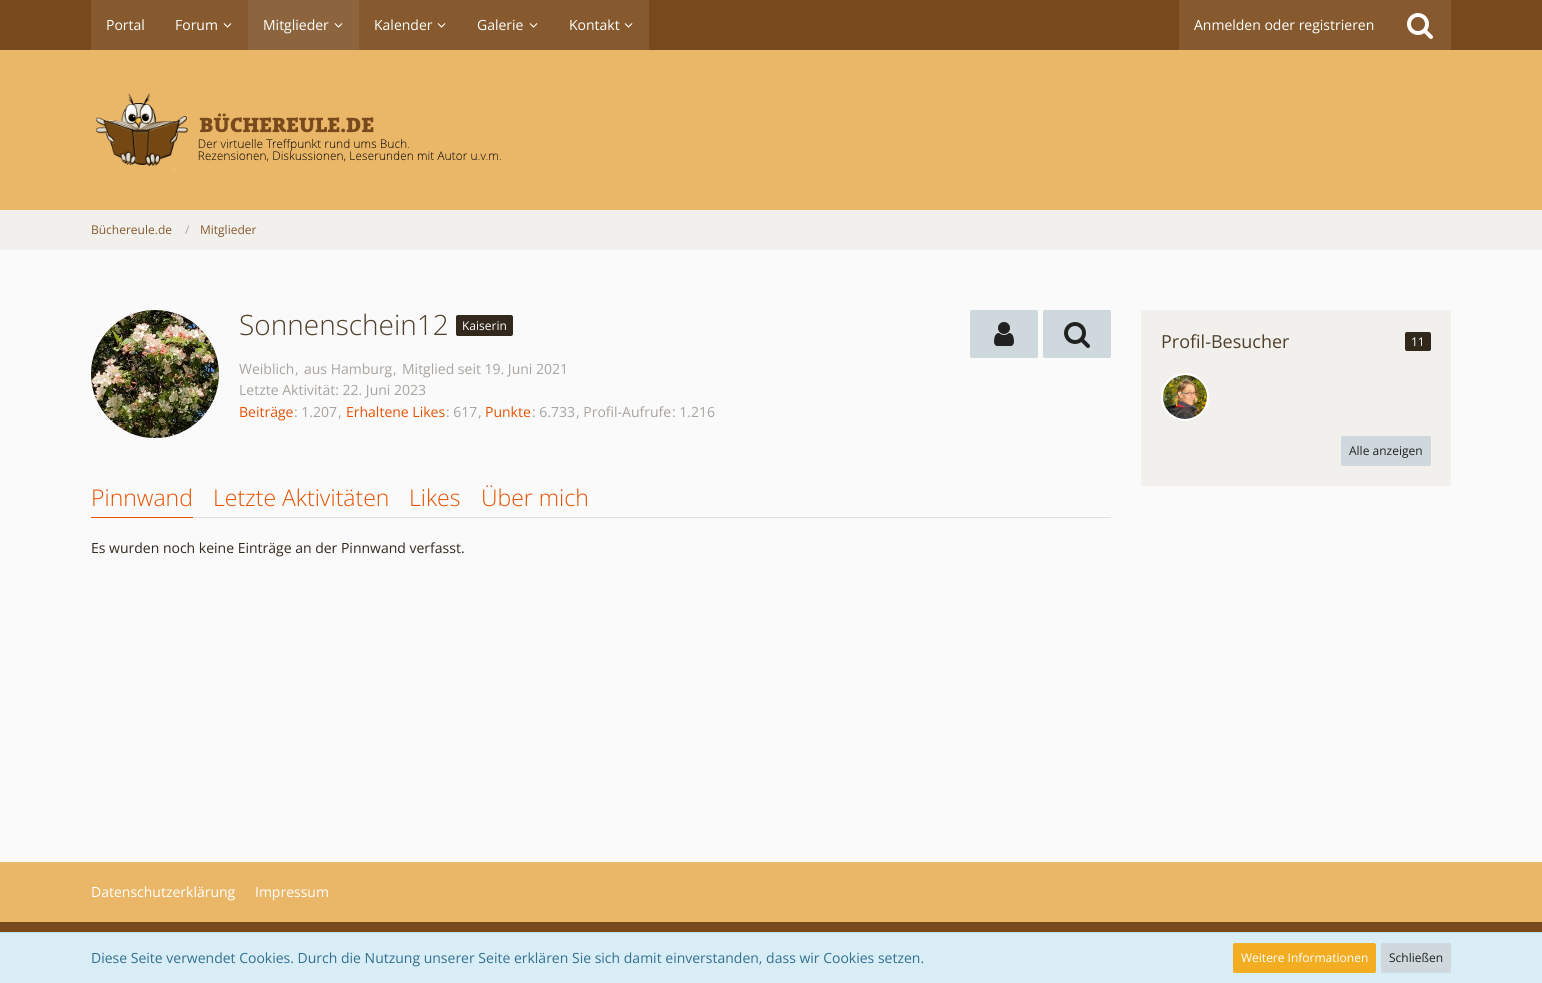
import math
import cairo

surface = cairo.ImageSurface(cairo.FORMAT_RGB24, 1542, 983)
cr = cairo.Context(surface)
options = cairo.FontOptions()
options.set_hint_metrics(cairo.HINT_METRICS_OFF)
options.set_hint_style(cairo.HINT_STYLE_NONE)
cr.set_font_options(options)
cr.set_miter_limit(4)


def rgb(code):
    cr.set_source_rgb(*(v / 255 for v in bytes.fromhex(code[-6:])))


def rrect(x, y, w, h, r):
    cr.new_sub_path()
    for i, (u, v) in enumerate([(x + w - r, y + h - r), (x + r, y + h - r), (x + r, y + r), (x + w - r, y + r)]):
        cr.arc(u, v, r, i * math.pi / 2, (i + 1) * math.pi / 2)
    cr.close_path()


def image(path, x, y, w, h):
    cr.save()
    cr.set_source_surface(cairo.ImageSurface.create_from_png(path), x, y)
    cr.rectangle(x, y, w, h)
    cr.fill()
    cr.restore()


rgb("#fafafa")
cr.paint()
for x, y, w, h, color in [
    (0, 50, 1542, 160, "#eab769"),
    (0, 0, 1542, 50, "#77491c"),
    (91, 0, 157, 50, "#865a2e"),
]:
    rgb(color)
    cr.rectangle(x, y, w, h)
    cr.fill()
image("img/1.png", 223, 23, 9, 5)
rgb("#8c653f")
cr.rectangle(248, 0, 111, 50)
cr.fill()
image("img/2.png", 334, 23, 9, 5)
rgb("#865a2e")
cr.rectangle(359, 0, 290, 50)
cr.fill()
image("img/1.png", 437, 23, 9, 5)
image("img/1.png", 529, 23, 9, 5)
image("img/1.png", 624, 23, 9, 5)
cr.rectangle(1179, 0, 272, 50)
cr.fill()
image("img/3.png", 1407, 13, 26, 26)
image("img/4.png", 96, 93, 405, 77)
rgb("#f2f0ed")
cr.rectangle(0, 210, 1542, 40)
cr.fill()
rgb("#ffffff")
cr.arc(155, 374, 64, 0, 2 * math.pi)
cr.fill()
image("img/5.png", 91, 310, 128, 128)
rgb("#32281c")
rrect(456, 315, 57, 21, 2)
cr.fill()
rgb("#cfd8dc")
rrect(970, 310, 68, 48, 2)
cr.fill()
image("img/6.png", 994, 322, 20, 24)
rrect(1043, 310, 68, 48, 2)
cr.fill()
image("img/7.png", 1064, 322, 26, 26)
for x, y, w, h, color in [
    (193, 517, 918, 1, "#e0e0e0"),
    (91, 517, 102, 1, "#e65100"),
    (1141, 310, 310, 176, "#f2f0ed"),
]:
    rgb(color)
    cr.rectangle(x, y, w, h)
    cr.fill()
rgb("#32281c")
rrect(1405, 332, 26, 19, 2)
cr.fill()
rgb("#ffffff")
cr.arc(1185, 397, 23, 0, 2 * math.pi)
cr.fill_preserve()
cr.stroke()
image("img/8.png", 1163, 375, 44, 44)
rgb("#cfd8dc")
rrect(1341, 436, 90, 30, 2)
cr.fill()
for x, y, w, h, color in [
    (0, 862, 1542, 60, "#eab769"),
    (0, 922, 1542, 10, "#77491c"),
    (0, 933, 1542, 50, "#d9edf7"),
    (0, 932, 1542, 1, "#bcdff1"),
]:
    rgb(color)
    cr.rectangle(x, y, w, h)
    cr.fill()
rgb("#f2ad22")
rrect(1233, 943, 143, 30, 2)
cr.fill()
rgb("#cfd8dc")
rrect(1381, 943, 70, 30, 2)
cr.fill()
cr.select_font_face("Open Sans")
cr.set_font_size(14)
rgb("#ffffff")
for x, y, s in [
    (106, 30, "Portal"),
    (175, 30, "Forum"),
    (263, 30, "Mitglieder"),
    (374, 30, "Kalender"),
    (477, 30, "Galerie"),
    (569, 30, "Kontakt"),
    (1194, 30, "Anmelden oder registrieren"),
]:
    cr.move_to(x, y)
    cr.show_text(s)
cr.set_font_size(12)
rgb("#865a2e")
cr.move_to(91, 234)
cr.show_text("Büchereule.de")
rgb("#aaaaaa")
cr.move_to(185, 234)
cr.show_text("/")
rgb("#865a2e")
cr.move_to(200, 234)
cr.show_text("Mitglieder")
cr.select_font_face("Open Sans Light")
cr.set_font_size(28)
rgb("#4f3f2b")
cr.move_to(239, 335)
cr.show_text("Sonnenschein12")
cr.select_font_face("Open Sans")
cr.set_font_size(12)
rgb("#ffffff")
cr.move_to(462, 330)
cr.show_text("Kaiserin")
cr.set_font_size(14)
rgb("#a8a39f")
for x, y, s in [
    (239, 374, "Weiblich"),
    (295, 374, ","),
    (304, 374, "aus Hamburg"),
    (393, 374, ","),
    (402, 374, "Mitglied seit 19. Juni 2021"),
    (239, 395, "Letzte Aktivität: 22. Juni 2023"),
]:
    cr.move_to(x, y)
    cr.show_text(s)
rgb("#e65100")
cr.move_to(239, 417)
cr.show_text("Beiträge")
rgb("#a8a39f")
cr.move_to(294, 417)
cr.show_text(": 1.207")
cr.move_to(338, 417)
cr.show_text(",")
rgb("#e65100")
cr.move_to(346, 417)
cr.show_text("Erhaltene Likes")
rgb("#a8a39f")
cr.move_to(446, 417)
cr.show_text(": 617")
cr.move_to(478, 417)
cr.show_text(",")
rgb("#e65100")
cr.move_to(485, 417)
cr.show_text("Punkte")
rgb("#a8a39f")
for x, y, s in [
    (532, 417, ": 6.733"),
    (576, 417, ", Profil-Aufrufe"),
    (672, 417, ": 1.216"),
]:
    cr.move_to(x, y)
    cr.show_text(s)
cr.select_font_face("Open Sans Light")
cr.set_font_size(23)
rgb("#e65100")
for x, y, s in [
    (91, 506, "Pinnwand"),
    (213, 506, "Letzte Aktivitäten"),
    (409, 506, "Likes"),
    (481, 506, "Über mich"),
]:
    cr.move_to(x, y)
    cr.show_text(s)
cr.select_font_face("Open Sans")
cr.set_font_size(14)
rgb("#32281c")
cr.move_to(91, 553)
cr.show_text("Es wurden noch keine Einträge an der Pinnwand verfasst.")
cr.set_font_size(18)
rgb("#4f3f2b")
cr.move_to(1161, 348)
cr.show_text("Profil-Besucher")
cr.set_font_size(12)
rgb("#ffffff")
cr.move_to(1411, 346)
cr.show_text("11")
rgb("#212121")
cr.move_to(1349, 455)
cr.show_text("Alle anzeigen")
cr.set_font_size(14)
rgb("#ffffff")
cr.move_to(91, 897)
cr.show_text("Datenschutzerklärung")
cr.move_to(255, 897)
cr.show_text("Impressum")
rgb("#31708f")
cr.move_to(91, 963)
cr.show_text("Diese Seite verwendet Cookies. Durch die Nutzung unserer Seite erklären Sie sich damit einverstanden, dass wir Cookies setzen.")
cr.set_font_size(12)
rgb("#ffffff")
cr.move_to(1241, 962)
cr.show_text("Weitere Informationen")
rgb("#212121")
cr.move_to(1389, 962)
cr.show_text("Schließen")
surface.write_to_png("page.png")
